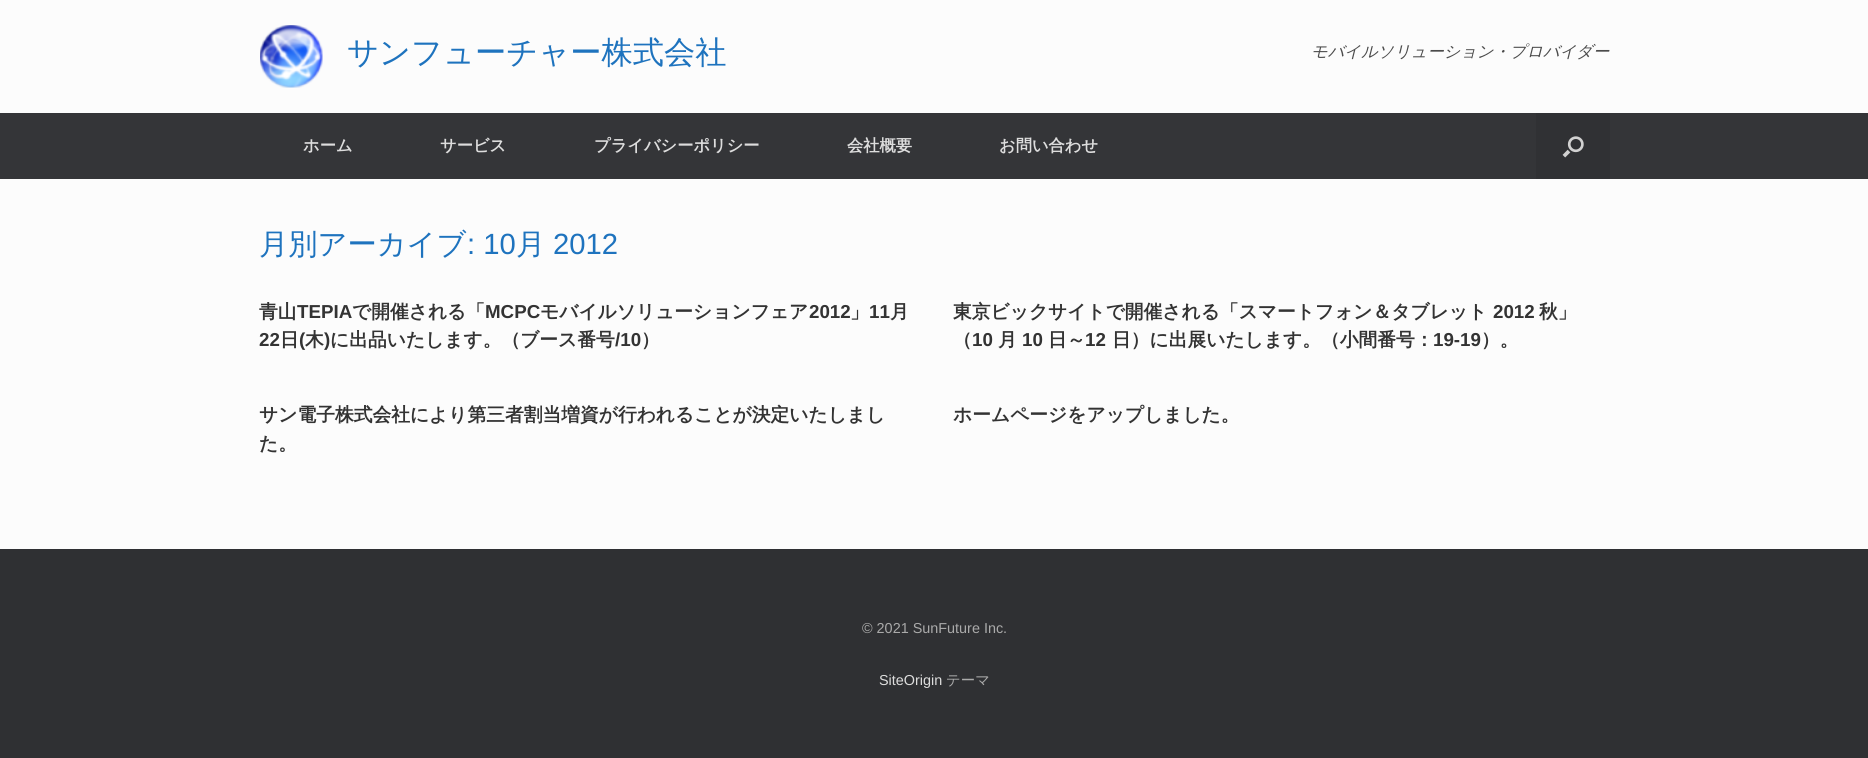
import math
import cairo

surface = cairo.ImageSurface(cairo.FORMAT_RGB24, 1868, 758)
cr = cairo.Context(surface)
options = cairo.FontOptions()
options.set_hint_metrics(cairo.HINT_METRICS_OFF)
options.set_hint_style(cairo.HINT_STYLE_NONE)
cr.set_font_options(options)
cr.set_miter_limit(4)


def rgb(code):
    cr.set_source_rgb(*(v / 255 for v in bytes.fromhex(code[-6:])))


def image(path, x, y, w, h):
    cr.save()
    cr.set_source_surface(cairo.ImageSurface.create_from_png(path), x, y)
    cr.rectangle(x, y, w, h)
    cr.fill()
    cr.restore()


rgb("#2f3033")
cr.paint()
rgb("#fcfcfc")
cr.rectangle(0, 0, 1868, 113)
cr.fill()
image("img/1.png", 260, 25, 63, 63)
rgb("#343538")
cr.rectangle(0, 113, 1868, 66)
cr.fill()
rgb("#303134")
cr.rectangle(1536, 113, 74, 66)
cr.fill()
image("img/2.png", 1562, 136, 22, 22)
rgb("#fcfcfc")
cr.rectangle(0, 179, 1868, 370)
cr.fill()
cr.select_font_face("WenQuanYi Zen Hei Medium")
cr.set_font_size(31.25)
rgb("#1e73be")
cr.move_to(347, 63)
cr.show_text("サンフューチャー株式会社")
cr.select_font_face("WenQuanYi Zen Hei Medium", cairo.FONT_SLANT_ITALIC)
cr.set_font_size(16.25)
rgb("#4b4b4b")
cr.move_to(1311, 57)
cr.show_text("モバイルソリューション・プロバイダー")
cr.select_font_face("WenQuanYi Zen Hei", cairo.FONT_SLANT_NORMAL, cairo.FONT_WEIGHT_BOLD)
rgb("#dddddd")
for x, y, s in [
    (303, 151, "ホーム"),
    (440, 151, "サービス"),
    (594, 151, "プライバシーポリシー"),
    (847, 151, "会社概要"),
    (999, 151, "お問い合わせ"),
]:
    cr.move_to(x, y)
    cr.show_text(s)
cr.select_font_face("WenQuanYi Zen Hei Medium")
cr.set_font_size(29.25)
rgb("#1e73be")
cr.move_to(259, 254)
cr.show_text("月別アーカイブ")
cr.select_font_face("Liberation Sans")
cr.move_to(467, 254)
cr.show_text(": 10")
cr.select_font_face("WenQuanYi Zen Hei Medium")
cr.move_to(516, 254)
cr.show_text("月")
cr.select_font_face("Liberation Sans")
cr.move_to(553, 254)
cr.show_text("2012")
cr.select_font_face("WenQuanYi Zen Hei", cairo.FONT_SLANT_NORMAL, cairo.FONT_WEIGHT_BOLD)
cr.set_font_size(18.75)
rgb("#333333")
cr.move_to(259, 318)
cr.show_text("青山")
cr.select_font_face("Liberation Sans", cairo.FONT_SLANT_NORMAL, cairo.FONT_WEIGHT_BOLD)
cr.move_to(297, 318)
cr.show_text("TEPIA")
cr.select_font_face("WenQuanYi Zen Hei", cairo.FONT_SLANT_NORMAL, cairo.FONT_WEIGHT_BOLD)
cr.move_to(352, 318)
cr.show_text("で開催される「")
cr.select_font_face("Liberation Sans", cairo.FONT_SLANT_NORMAL, cairo.FONT_WEIGHT_BOLD)
cr.move_to(485, 318)
cr.show_text("MCPC")
cr.select_font_face("WenQuanYi Zen Hei", cairo.FONT_SLANT_NORMAL, cairo.FONT_WEIGHT_BOLD)
cr.move_to(540, 318)
cr.show_text("モバイルソリューションフェア")
cr.select_font_face("Liberation Sans", cairo.FONT_SLANT_NORMAL, cairo.FONT_WEIGHT_BOLD)
cr.move_to(809, 318)
cr.show_text("2012")
cr.select_font_face("WenQuanYi Zen Hei", cairo.FONT_SLANT_NORMAL, cairo.FONT_WEIGHT_BOLD)
cr.move_to(850, 318)
cr.show_text("」")
cr.select_font_face("Liberation Sans", cairo.FONT_SLANT_NORMAL, cairo.FONT_WEIGHT_BOLD)
cr.move_to(869, 318)
cr.show_text("11")
cr.select_font_face("WenQuanYi Zen Hei", cairo.FONT_SLANT_NORMAL, cairo.FONT_WEIGHT_BOLD)
cr.move_to(890, 318)
cr.show_text("月")
cr.select_font_face("Liberation Sans", cairo.FONT_SLANT_NORMAL, cairo.FONT_WEIGHT_BOLD)
cr.move_to(259, 346)
cr.show_text("22")
cr.select_font_face("WenQuanYi Zen Hei", cairo.FONT_SLANT_NORMAL, cairo.FONT_WEIGHT_BOLD)
cr.move_to(280, 346)
cr.show_text("日")
cr.select_font_face("Liberation Sans", cairo.FONT_SLANT_NORMAL, cairo.FONT_WEIGHT_BOLD)
cr.move_to(299, 346)
cr.show_text("(")
cr.select_font_face("WenQuanYi Zen Hei", cairo.FONT_SLANT_NORMAL, cairo.FONT_WEIGHT_BOLD)
cr.move_to(305, 346)
cr.show_text("木")
cr.select_font_face("Liberation Sans", cairo.FONT_SLANT_NORMAL, cairo.FONT_WEIGHT_BOLD)
cr.move_to(324, 346)
cr.show_text(")")
cr.select_font_face("WenQuanYi Zen Hei", cairo.FONT_SLANT_NORMAL, cairo.FONT_WEIGHT_BOLD)
cr.move_to(330, 346)
cr.show_text("に出品いたします。（ブース番号")
cr.select_font_face("Liberation Sans", cairo.FONT_SLANT_NORMAL, cairo.FONT_WEIGHT_BOLD)
cr.move_to(615, 346)
cr.show_text("/10")
cr.select_font_face("WenQuanYi Zen Hei", cairo.FONT_SLANT_NORMAL, cairo.FONT_WEIGHT_BOLD)
cr.move_to(641, 346)
cr.show_text("）")
cr.move_to(953, 318)
cr.show_text("東京ビックサイトで開催される「スマートフォン＆タブレット")
cr.select_font_face("Liberation Sans", cairo.FONT_SLANT_NORMAL, cairo.FONT_WEIGHT_BOLD)
cr.move_to(1493, 318)
cr.show_text("2012")
cr.select_font_face("WenQuanYi Zen Hei", cairo.FONT_SLANT_NORMAL, cairo.FONT_WEIGHT_BOLD)
cr.move_to(1539, 318)
cr.show_text("秋」")
cr.move_to(953, 346)
cr.show_text("（")
cr.select_font_face("Liberation Sans", cairo.FONT_SLANT_NORMAL, cairo.FONT_WEIGHT_BOLD)
cr.move_to(972, 346)
cr.show_text("10")
cr.select_font_face("WenQuanYi Zen Hei", cairo.FONT_SLANT_NORMAL, cairo.FONT_WEIGHT_BOLD)
cr.move_to(998, 346)
cr.show_text("月")
cr.select_font_face("Liberation Sans", cairo.FONT_SLANT_NORMAL, cairo.FONT_WEIGHT_BOLD)
cr.move_to(1022, 346)
cr.show_text("10")
cr.select_font_face("WenQuanYi Zen Hei", cairo.FONT_SLANT_NORMAL, cairo.FONT_WEIGHT_BOLD)
cr.move_to(1048, 346)
cr.show_text("日～")
cr.select_font_face("Liberation Sans", cairo.FONT_SLANT_NORMAL, cairo.FONT_WEIGHT_BOLD)
cr.move_to(1085, 346)
cr.show_text("12")
cr.select_font_face("WenQuanYi Zen Hei", cairo.FONT_SLANT_NORMAL, cairo.FONT_WEIGHT_BOLD)
cr.move_to(1112, 346)
cr.show_text("日）に出展いたします。（小間番号：")
cr.select_font_face("Liberation Sans", cairo.FONT_SLANT_NORMAL, cairo.FONT_WEIGHT_BOLD)
cr.move_to(1433, 346)
cr.show_text("19-19")
cr.select_font_face("WenQuanYi Zen Hei", cairo.FONT_SLANT_NORMAL, cairo.FONT_WEIGHT_BOLD)
for x, y, s in [
    (1481, 346, "）。"),
    (259, 421, "サン電子株式会社により第三者割当増資が行われることが決定いたしまし"),
    (259, 450, "た。"),
    (953, 421, "ホームページをアップしました。"),
]:
    cr.move_to(x, y)
    cr.show_text(s)
cr.select_font_face("Liberation Sans")
cr.set_font_size(14.4)
rgb("#aaaaaa")
cr.move_to(862, 633)
cr.show_text("© 2021 SunFuture Inc.")
rgb("#dddddd")
cr.move_to(879, 685)
cr.show_text("SiteOrigin")
cr.select_font_face("WenQuanYi Zen Hei Medium")
rgb("#aaaaaa")
cr.move_to(946, 685)
cr.show_text("テーマ")
surface.write_to_png("page.png")
